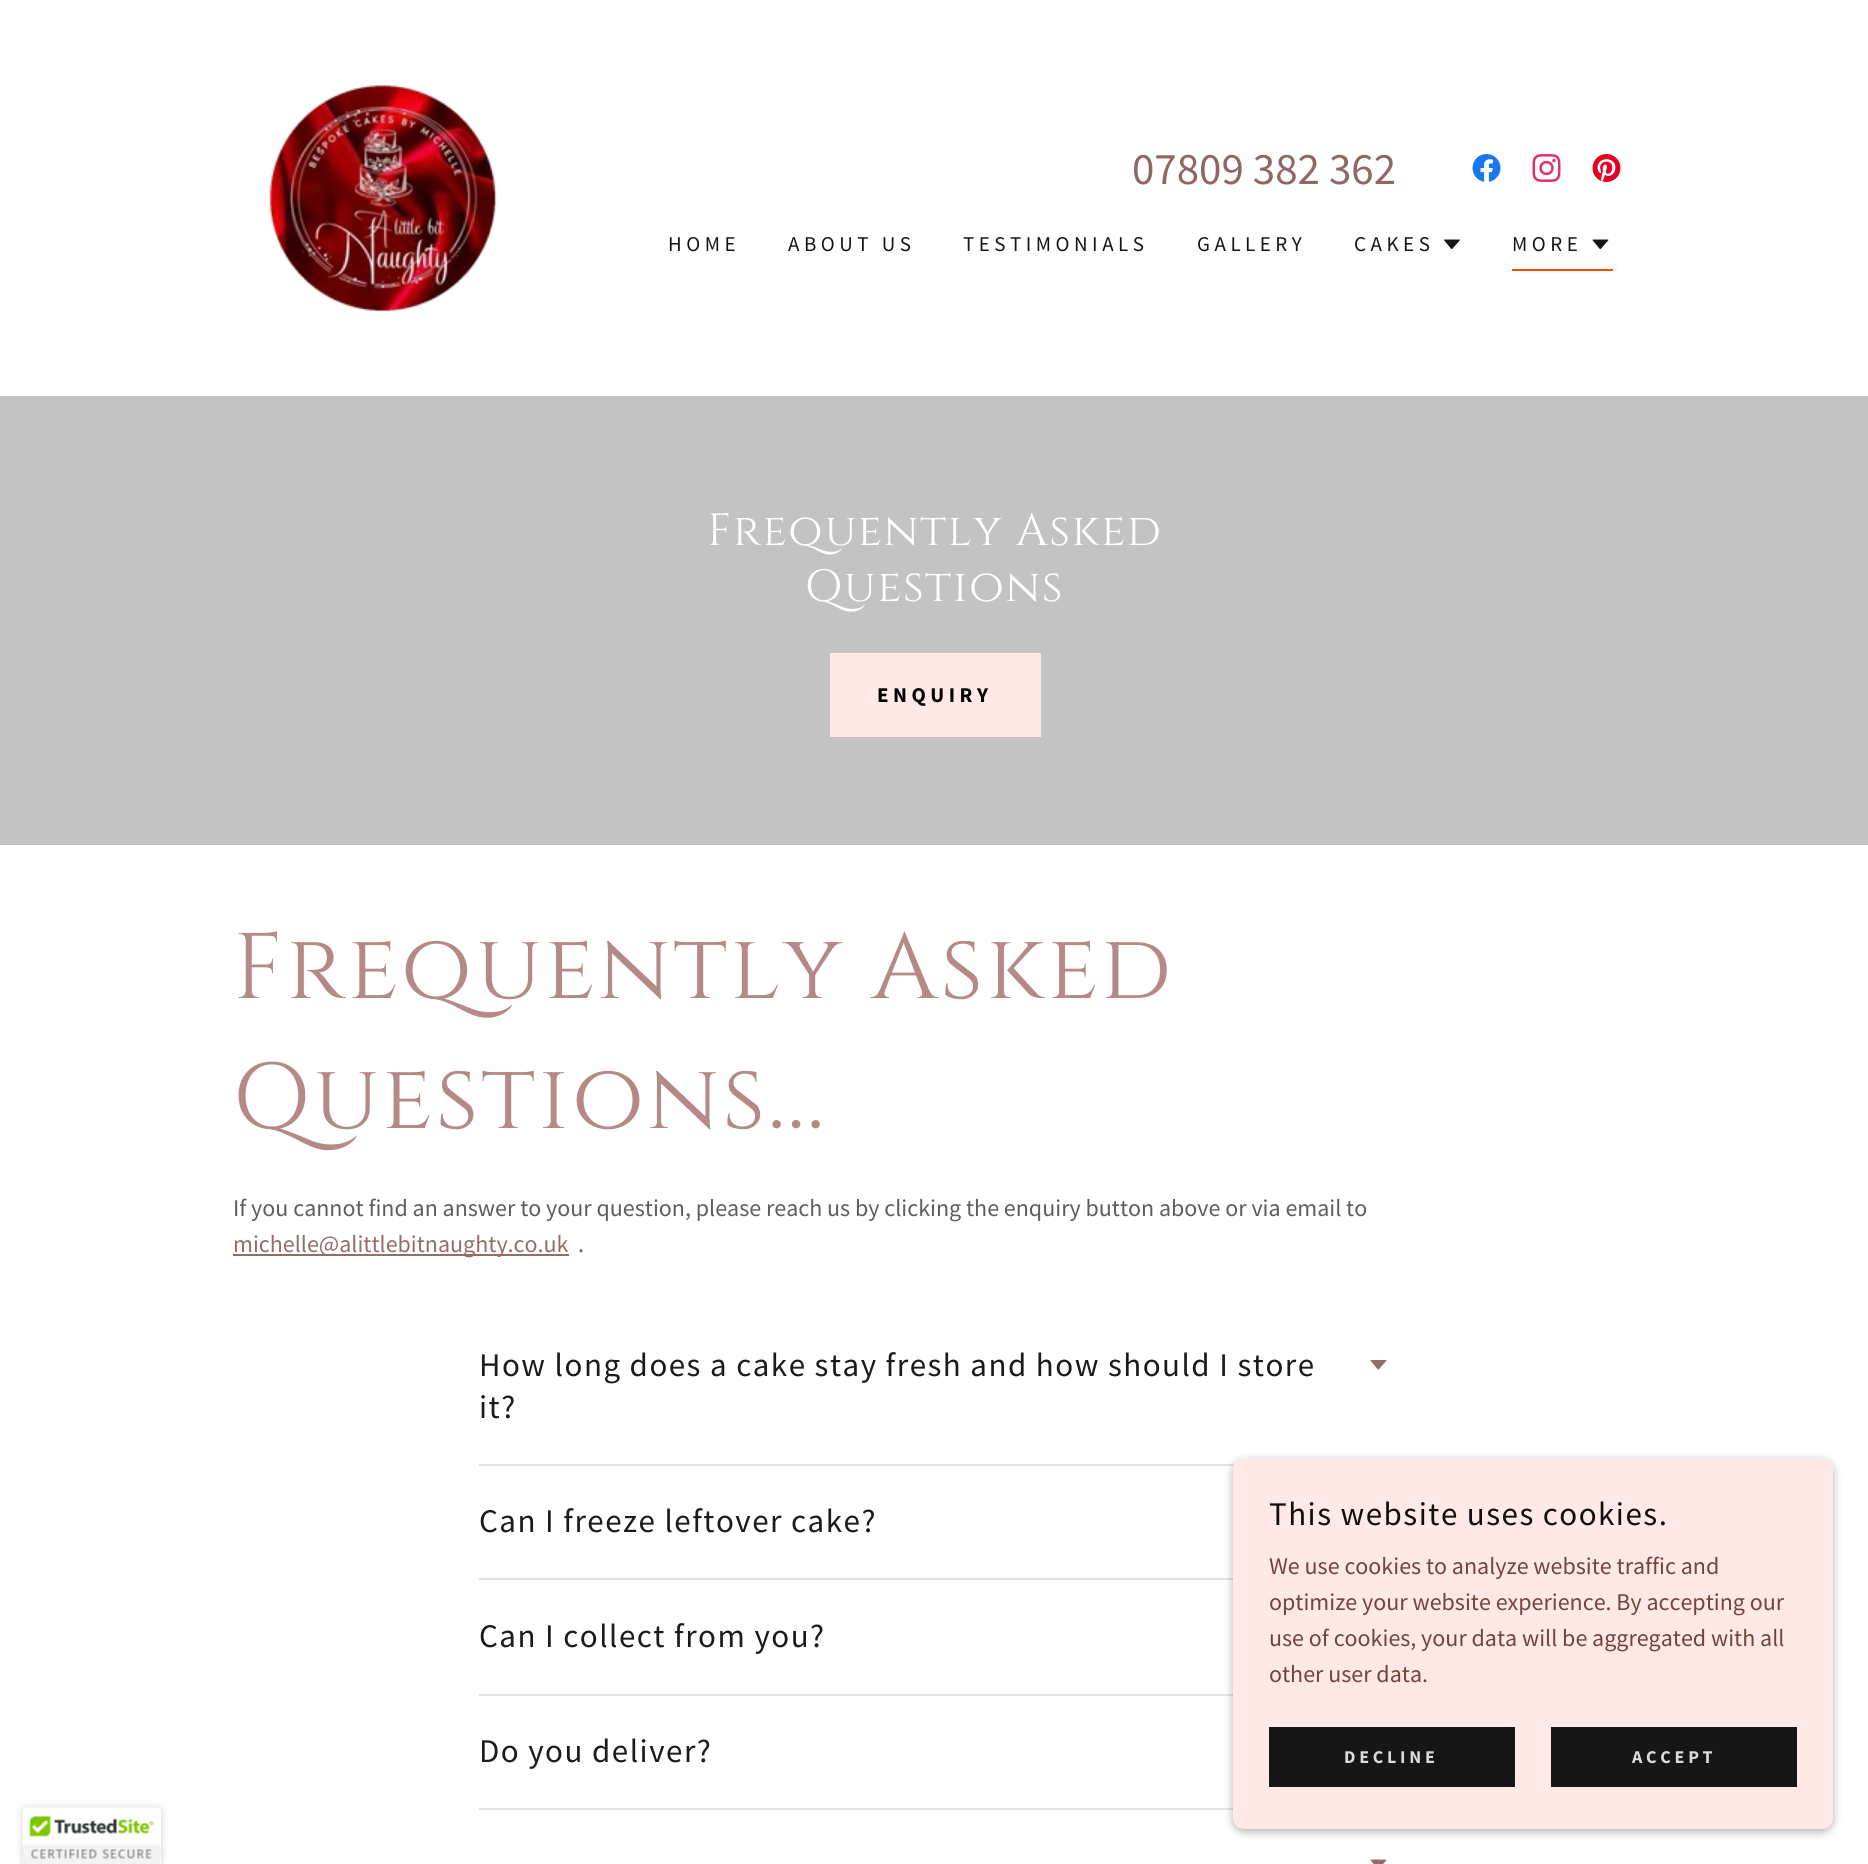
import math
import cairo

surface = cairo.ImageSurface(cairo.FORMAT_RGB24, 1868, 1864)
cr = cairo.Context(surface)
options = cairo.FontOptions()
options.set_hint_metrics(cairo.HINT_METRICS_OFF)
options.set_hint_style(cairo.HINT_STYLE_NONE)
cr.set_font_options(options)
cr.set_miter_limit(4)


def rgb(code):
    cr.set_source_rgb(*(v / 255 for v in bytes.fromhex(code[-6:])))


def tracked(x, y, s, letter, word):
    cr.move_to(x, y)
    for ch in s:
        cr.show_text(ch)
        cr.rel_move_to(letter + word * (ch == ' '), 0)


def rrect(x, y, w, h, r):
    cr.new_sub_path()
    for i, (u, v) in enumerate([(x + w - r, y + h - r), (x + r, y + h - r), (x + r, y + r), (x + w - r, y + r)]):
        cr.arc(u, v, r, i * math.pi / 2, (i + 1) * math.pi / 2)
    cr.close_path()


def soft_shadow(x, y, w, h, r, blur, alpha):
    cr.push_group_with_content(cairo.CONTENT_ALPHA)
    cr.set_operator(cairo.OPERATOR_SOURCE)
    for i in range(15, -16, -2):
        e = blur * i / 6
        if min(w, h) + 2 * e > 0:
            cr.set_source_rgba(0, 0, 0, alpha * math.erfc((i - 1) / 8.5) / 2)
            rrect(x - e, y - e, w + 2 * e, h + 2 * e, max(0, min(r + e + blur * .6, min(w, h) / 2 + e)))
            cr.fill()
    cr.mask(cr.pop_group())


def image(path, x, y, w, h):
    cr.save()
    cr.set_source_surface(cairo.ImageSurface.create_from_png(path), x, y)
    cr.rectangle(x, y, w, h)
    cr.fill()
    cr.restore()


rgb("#ffffff")
cr.paint()
image("img/1.png", 269, 85, 228, 227)
image("img/2.png", 1472, 154, 29, 28)
image("img/3.png", 1532, 154, 29, 28)
image("img/4.png", 1592, 154, 29, 28)
image("img/5.png", 1444, 239, 16, 11)
rgb("#f74c00")
cr.rectangle(1512, 269, 101, 2)
cr.fill()
image("img/6.png", 1592, 239, 17, 11)
for x, y, w, h, color in [
    (0, 396, 1868, 449, "#c3c3c3"),
    (830, 653, 211, 84, "#ffe9e7"),
    (233, 1254, 336, 2, "#966c68"),
]:
    rgb(color)
    cr.rectangle(x, y, w, h)
    cr.fill()
image("img/7.png", 1370, 1360, 17, 10)
for x, y, w, h, color in [
    (479, 1464, 756, 2, "#e2e2e2"),
    (479, 1578, 754, 2, "#e2e2e2"),
    (479, 1694, 754, 2, "#e2e2e2"),
    (479, 1808, 754, 2, "#e2e2e2"),
]:
    rgb(color)
    cr.rectangle(x, y, w, h)
    cr.fill()
image("img/8.png", 1370, 1859, 17, 5)
rgb("#000000")
soft_shadow(1233, 1461, 600, 371, 11, 4.5, 0.3)
rgb("#ffe9e7")
rrect(1233, 1458, 600, 371, 11)
cr.fill()
rgb("#161616")
cr.rectangle(1269, 1727, 246, 60)
cr.fill()
cr.rectangle(1551, 1727, 246, 60)
cr.fill()
rgb("#000000")
soft_shadow(23, 1808, 138, 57, 3, 4, 0.2)
rgb("#ffffff")
cr.new_path()
cr.move_to(26, 1808)
cr.line_to(158, 1808)
cr.curve_to(159.5, 1808, 161, 1809.5, 161, 1811)
cr.line_to(161, 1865)
cr.line_to(23, 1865)
cr.line_to(23, 1811)
cr.curve_to(23, 1809.5, 24.5, 1808, 26, 1808)
cr.close_path()
cr.fill()
image("img/9.png", 22, 1807, 139, 57)
cr.select_font_face("Source Sans Pro")
cr.set_font_size(45)
rgb("#8f6864")
cr.move_to(1132, 184)
cr.show_text("07809 382 362")
cr.set_font_size(21)
rgb("#151515")
for x, y, s in [
    (668, 251, "HOME"),
    (788, 251, "ABOUT US"),
    (963, 251, "TESTIMONIALS"),
    (1197, 251, "GALLERY"),
    (1354, 251, "CAKES"),
    (1512, 251, "MORE"),
]:
    tracked(x, y, s, 4.5, 0)
cr.select_font_face("Cinzel")
cr.set_font_size(45)
rgb("#ffffff")
tracked(707, 545, "Frequently Asked", 1.4, 0)
tracked(805, 601, "Questions", 1.4, 0)
cr.select_font_face("Source Sans Pro", cairo.FONT_SLANT_NORMAL, cairo.FONT_WEIGHT_BOLD)
cr.set_font_size(21)
rgb("#000000")
tracked(877, 702, "ENQUIRY", 4.5, 0)
cr.select_font_face("Cinzel")
cr.set_font_size(93)
rgb("#b58a86")
tracked(233, 998, "Frequently Asked", 2.9, 0)
tracked(233, 1128, "Questions...", 2.9, 0)
cr.select_font_face("Source Sans Pro")
cr.set_font_size(24)
rgb("#5e5e5e")
cr.move_to(233, 1216)
cr.show_text("If you cannot find an answer to your question, please reach us by clicking the enquiry button above or via email to")
rgb("#966c68")
cr.move_to(233, 1252)
cr.show_text("michelle@alittlebitnaughty.co.uk")
rgb("#5e5e5e")
cr.move_to(578, 1252)
cr.show_text(".")
cr.set_font_size(33)
rgb("#1b1b1b")
for x, y, s in [
    (479, 1376, "How long does a cake stay fresh and how should I store"),
    (479, 1418, "it?"),
    (479, 1532, "Can I freeze leftover cake?"),
    (479, 1647, "Can I collect from you?"),
    (479, 1762, "Do you deliver?"),
]:
    tracked(x, y, s, 1.48, 0)
rgb("#100e0e")
tracked(1269, 1525, "This website uses cookies.", 1.48, 0)
cr.set_font_size(24)
rgb("#71443e")
for x, y, s in [
    (1269, 1574, "We use cookies to analyze website traffic and"),
    (1269, 1610, "optimize your website experience. By accepting our"),
    (1269, 1646, "use of cookies, your data will be aggregated with all"),
    (1269, 1682, "other user data."),
]:
    cr.move_to(x, y)
    cr.show_text(s)
cr.select_font_face("Source Sans Pro", cairo.FONT_SLANT_NORMAL, cairo.FONT_WEIGHT_BOLD)
cr.set_font_size(18)
rgb("#dbdbdb")
tracked(1344, 1763, "DECLINE", 3.75, 0)
tracked(1632, 1763, "ACCEPT", 3.75, 0)
surface.write_to_png("page.png")
